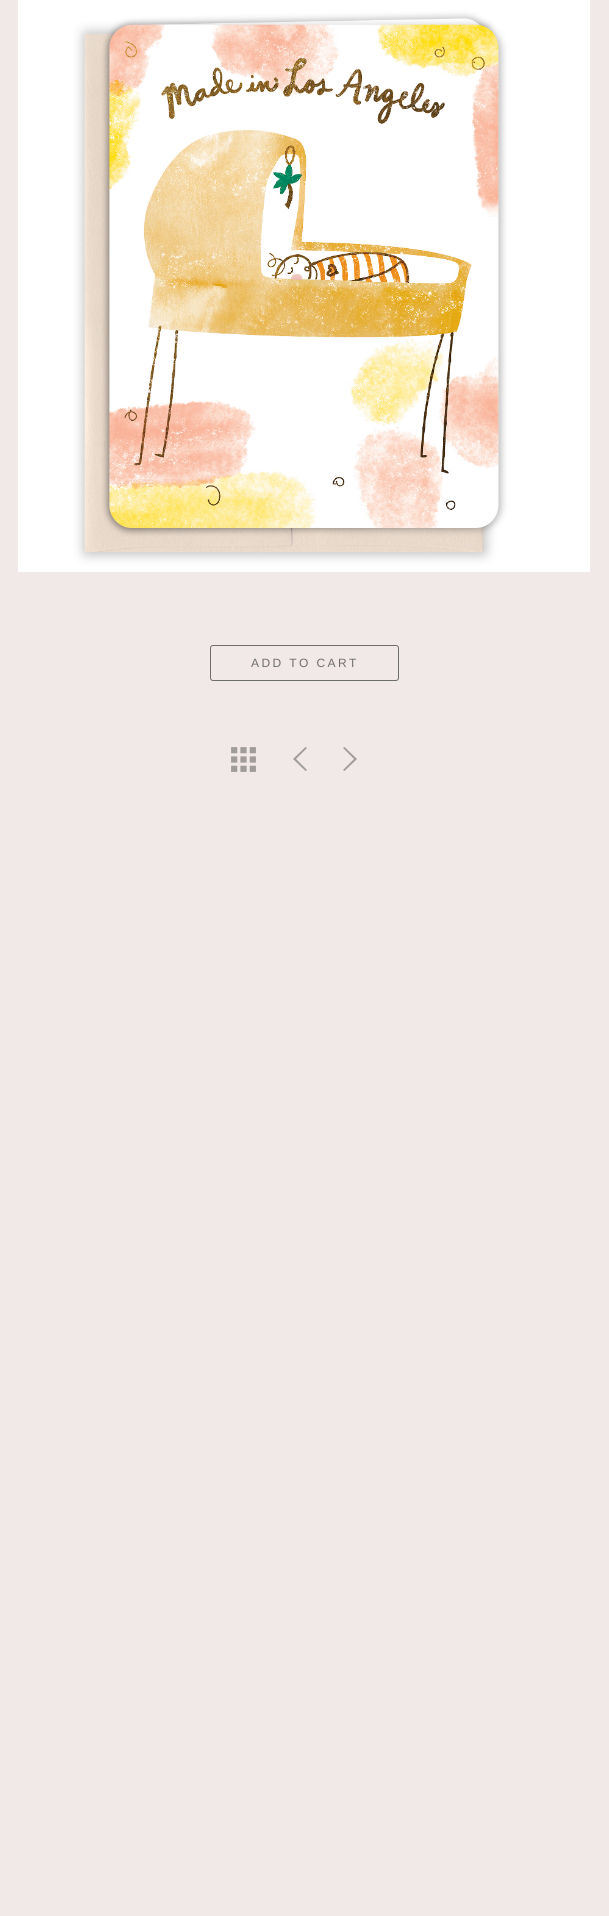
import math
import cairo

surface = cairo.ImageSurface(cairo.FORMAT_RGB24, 609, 1916)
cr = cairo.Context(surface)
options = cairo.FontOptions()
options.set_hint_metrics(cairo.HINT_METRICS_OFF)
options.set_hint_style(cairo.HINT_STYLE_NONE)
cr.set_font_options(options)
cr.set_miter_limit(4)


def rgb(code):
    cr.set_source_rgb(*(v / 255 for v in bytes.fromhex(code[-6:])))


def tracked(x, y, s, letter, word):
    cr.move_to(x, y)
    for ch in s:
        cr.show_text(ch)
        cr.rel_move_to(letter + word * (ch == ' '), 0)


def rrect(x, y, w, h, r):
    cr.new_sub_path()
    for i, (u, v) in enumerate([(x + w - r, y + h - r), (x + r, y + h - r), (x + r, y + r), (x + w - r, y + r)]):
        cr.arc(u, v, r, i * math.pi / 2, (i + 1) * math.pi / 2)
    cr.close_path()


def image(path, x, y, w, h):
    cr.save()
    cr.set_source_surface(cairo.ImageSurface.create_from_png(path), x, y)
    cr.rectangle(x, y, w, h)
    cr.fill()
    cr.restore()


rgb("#f1e8e8")
cr.paint()
image("img/1.png", 18, 0, 572, 572)
rrect(210.5, 645.5, 188, 35, 2.5)
rgb("#6f6e6e")
cr.set_line_width(1)
cr.stroke()
image("img/2.png", 231, 747, 25, 25)
rgb("#a09c9c")
cr.new_path()
cr.move_to(305.5, 771)
cr.line_to(307, 770)
cr.line_to(296, 759)
cr.line_to(307, 748)
cr.line_to(305.5, 747)
cr.line_to(293, 759)
cr.close_path()
cr.fill()
cr.new_path()
cr.move_to(357, 759)
cr.line_to(344.5, 747)
cr.line_to(343, 748)
cr.line_to(354, 759)
cr.line_to(343, 770)
cr.line_to(344.5, 771)
cr.close_path()
cr.fill()
cr.select_font_face("Liberation Sans")
cr.set_font_size(12)
rgb("#6f6e6e")
tracked(251, 667, "ADD TO CART", 2.4, 0)
surface.write_to_png("page.png")
